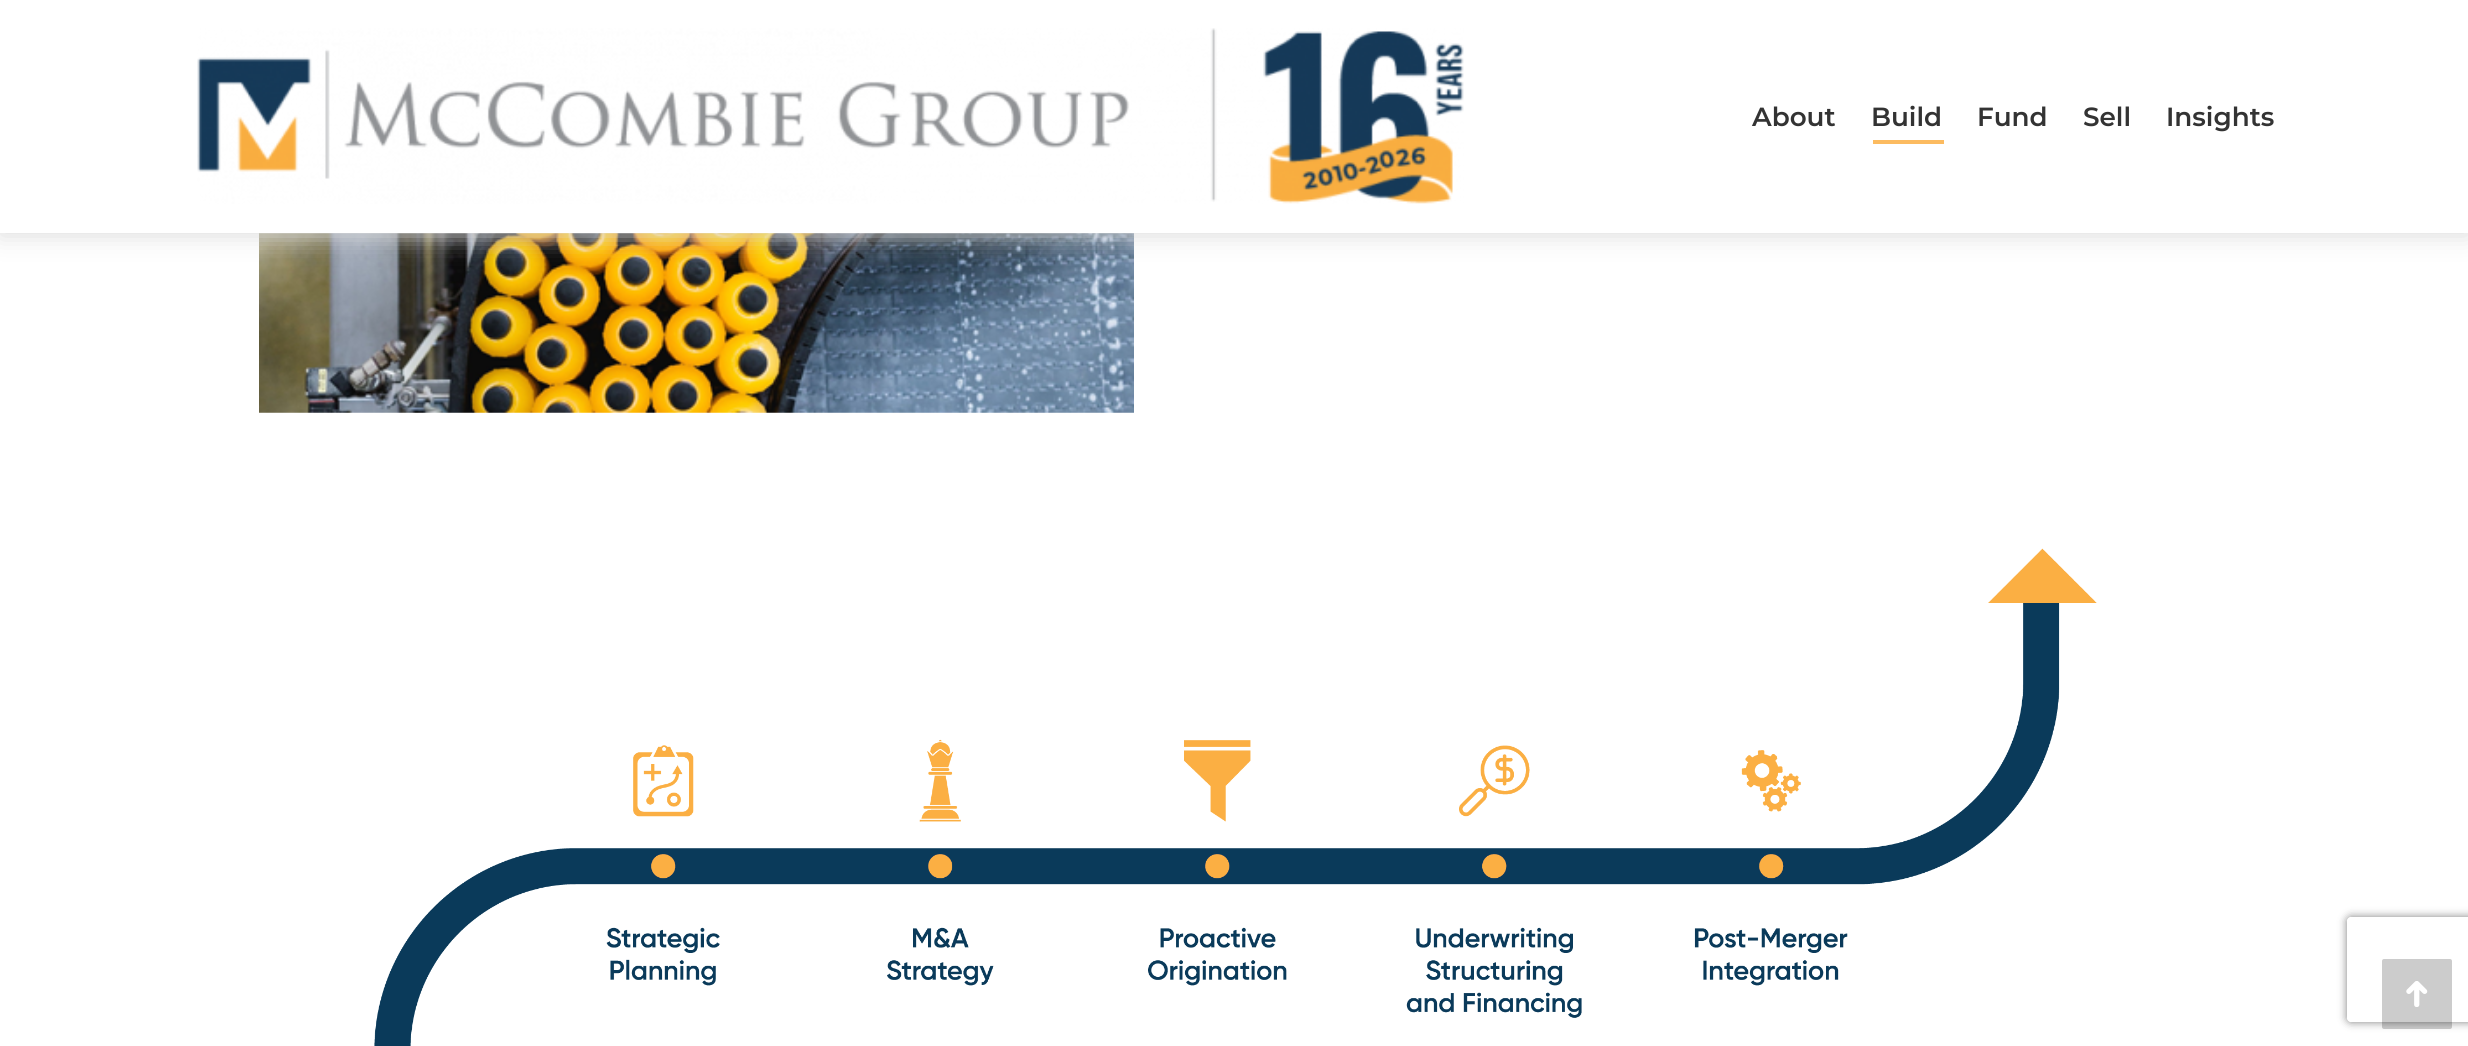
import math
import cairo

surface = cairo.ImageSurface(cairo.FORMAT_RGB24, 2468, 1046)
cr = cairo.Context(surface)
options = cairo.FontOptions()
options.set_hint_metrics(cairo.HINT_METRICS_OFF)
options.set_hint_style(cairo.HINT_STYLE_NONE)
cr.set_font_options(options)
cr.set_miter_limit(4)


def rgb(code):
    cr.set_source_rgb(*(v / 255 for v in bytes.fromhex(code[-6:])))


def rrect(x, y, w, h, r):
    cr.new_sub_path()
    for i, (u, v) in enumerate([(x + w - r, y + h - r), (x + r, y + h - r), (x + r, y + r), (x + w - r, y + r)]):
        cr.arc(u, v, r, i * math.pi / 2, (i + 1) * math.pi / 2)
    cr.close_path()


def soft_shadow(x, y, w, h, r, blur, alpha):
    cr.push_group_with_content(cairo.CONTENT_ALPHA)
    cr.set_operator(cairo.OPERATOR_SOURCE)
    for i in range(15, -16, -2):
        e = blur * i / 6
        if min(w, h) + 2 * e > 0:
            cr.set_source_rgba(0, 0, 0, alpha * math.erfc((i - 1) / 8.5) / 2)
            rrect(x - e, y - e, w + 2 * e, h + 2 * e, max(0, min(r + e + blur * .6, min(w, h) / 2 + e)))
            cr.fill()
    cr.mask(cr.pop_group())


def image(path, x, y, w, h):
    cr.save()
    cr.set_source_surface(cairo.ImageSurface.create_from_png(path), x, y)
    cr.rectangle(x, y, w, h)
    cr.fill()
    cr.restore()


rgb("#ffffff")
cr.paint()
image("img/2.png", 259, 233, 875, 180)
rgb("#dedede")
soft_shadow(0, 4, 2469, 232, 0, 12, 1)
rgb("#ffffff")
cr.rectangle(0, 0, 2468, 233)
cr.fill()
image("img/1.png", 197, 28, 1267, 176)
rgb("#fcbb60")
cr.rectangle(1873, 140, 71, 4)
cr.fill()
image("img/3.png", 374, 548, 1723, 498)
cr.save()
cr.set_fill_rule(cairo.FILL_RULE_EVEN_ODD)
cr.new_path()
cr.move_to(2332, 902)
cr.line_to(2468, 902)
cr.line_to(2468, 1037)
cr.line_to(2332, 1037)
cr.close_path()
cr.move_to(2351, 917)
cr.line_to(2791, 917)
cr.curve_to(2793, 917, 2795, 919, 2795, 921)
cr.line_to(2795, 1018)
cr.curve_to(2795, 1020, 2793, 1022, 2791, 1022)
cr.line_to(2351, 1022)
cr.curve_to(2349, 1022, 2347, 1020, 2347, 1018)
cr.line_to(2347, 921)
cr.curve_to(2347, 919, 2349, 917, 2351, 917)
cr.close_path()
cr.clip()
rgb("#808080")
soft_shadow(2347, 917, 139, 105, 4, 4.5, 1)
cr.restore()
cr.set_source_rgba(0, 0, 0, 0.2)
rrect(2382, 959, 70, 70, 2)
cr.fill()
image("img/4.png", 2406, 981, 22, 26)
cr.select_font_face("Montserrat SemiBold")
cr.set_font_size(26.25)
rgb("#333333")
for x, y, s in [
    (1752, 126, "About"),
    (1871, 126, "Build"),
    (1977, 126, "Fund"),
    (2083, 126, "Sell"),
    (2166, 126, "Insights"),
]:
    cr.move_to(x, y)
    cr.show_text(s)
surface.write_to_png("page.png")
